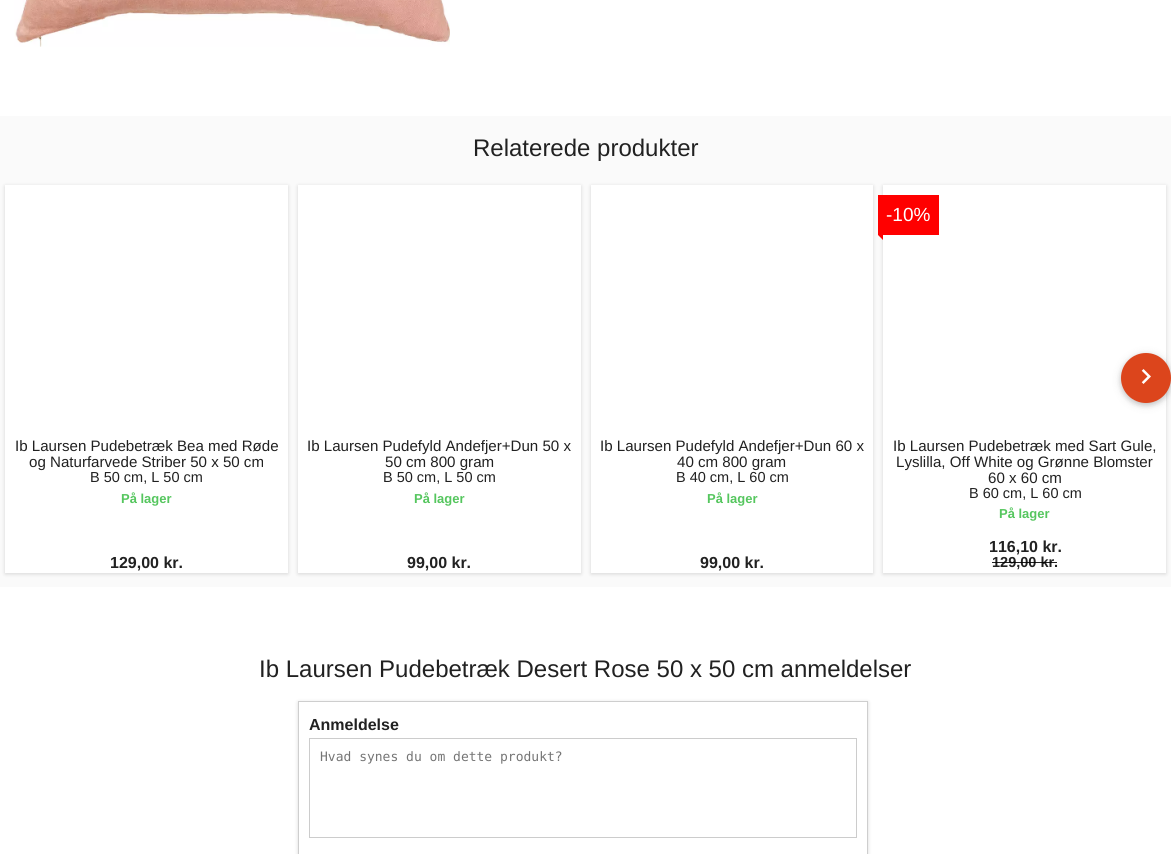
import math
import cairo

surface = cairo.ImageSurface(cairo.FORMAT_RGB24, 1171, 854)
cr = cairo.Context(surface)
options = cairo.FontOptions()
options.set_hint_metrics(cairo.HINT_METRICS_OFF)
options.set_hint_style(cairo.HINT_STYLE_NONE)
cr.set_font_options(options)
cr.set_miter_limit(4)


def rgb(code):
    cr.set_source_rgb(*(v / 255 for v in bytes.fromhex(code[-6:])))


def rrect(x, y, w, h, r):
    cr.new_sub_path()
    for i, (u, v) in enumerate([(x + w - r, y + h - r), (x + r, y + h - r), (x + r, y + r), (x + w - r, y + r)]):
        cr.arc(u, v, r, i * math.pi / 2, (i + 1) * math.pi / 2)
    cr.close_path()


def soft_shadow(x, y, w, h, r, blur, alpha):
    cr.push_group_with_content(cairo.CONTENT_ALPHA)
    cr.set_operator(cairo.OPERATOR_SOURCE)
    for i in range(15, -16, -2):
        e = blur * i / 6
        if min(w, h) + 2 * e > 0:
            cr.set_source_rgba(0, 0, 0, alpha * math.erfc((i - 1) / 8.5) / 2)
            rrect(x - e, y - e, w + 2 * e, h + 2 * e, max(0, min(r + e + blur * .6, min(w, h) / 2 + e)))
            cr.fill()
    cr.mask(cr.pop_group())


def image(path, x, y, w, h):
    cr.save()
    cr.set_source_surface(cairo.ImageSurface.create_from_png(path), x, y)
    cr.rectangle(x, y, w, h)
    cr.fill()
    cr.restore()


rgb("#ffffff")
cr.paint()
image("img/1.png", 14, 0, 436, 47)
rgb("#fafafa")
cr.rectangle(0, 116, 1171, 471)
cr.fill()
rgb("#000000")
soft_shadow(5, 186, 283, 388, 0, 2, 0.14)
rgb("#ffffff")
cr.rectangle(5, 185, 283, 388)
cr.fill()
rgb("#000000")
soft_shadow(298, 186, 283, 388, 0, 2, 0.14)
rgb("#ffffff")
cr.rectangle(298, 185, 283, 388)
cr.fill()
rgb("#000000")
soft_shadow(591, 186, 282, 388, 0, 2, 0.14)
rgb("#ffffff")
cr.rectangle(591, 185, 282, 388)
cr.fill()
rgb("#000000")
soft_shadow(883, 186, 283, 388, 0, 2, 0.14)
rgb("#ffffff")
cr.rectangle(883, 185, 283, 388)
cr.fill()
rgb("#ff0000")
cr.rectangle(878, 195, 61, 40)
cr.fill()
cr.new_path()
cr.move_to(883, 230)
cr.line_to(883, 240)
cr.line_to(878, 235)
cr.close_path()
cr.fill()
rgb("#000000")
soft_shadow(1121, 355, 50, 50, 25, 5, 0.12)
soft_shadow(1121, 355, 50, 50, 25, 2.5, 0.16)
rgb("#dc451c")
cr.arc(1146, 378, 25, 0, 2 * math.pi)
cr.fill()
image("img/2.png", 1141, 369, 10, 15)
cr.save()
cr.set_fill_rule(cairo.FILL_RULE_EVEN_ODD)
cr.new_path()
cr.move_to(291, 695)
cr.line_to(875, 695)
cr.line_to(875, 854)
cr.line_to(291, 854)
cr.close_path()
cr.move_to(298, 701)
cr.line_to(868, 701)
cr.line_to(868, 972)
cr.line_to(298, 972)
cr.close_path()
cr.clip()
rgb("#000000")
soft_shadow(298, 702, 570, 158, 0, 2, 0.14)
cr.restore()
cr.rectangle(298.5, 701.5, 569, 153)
rgb("#cecece")
cr.set_line_width(1)
cr.stroke()
cr.rectangle(309.5, 738.5, 547, 99)
rgb("#cccccc")
cr.stroke()
cr.select_font_face("Liberation Sans")
cr.set_font_size(24)
rgb("#212121")
cr.move_to(473, 156)
cr.show_text("Relaterede produkter")
cr.set_font_size(15.1)
cr.move_to(15, 451)
cr.show_text("Ib Laursen Pudebetræk Bea med Røde")
cr.move_to(29, 467)
cr.show_text("og Naturfarvede Striber 50 x 50 cm")
cr.set_font_size(14.5)
cr.move_to(90, 482)
cr.show_text("B 50 cm, L 50 cm")
cr.select_font_face("Liberation Sans", cairo.FONT_SLANT_NORMAL, cairo.FONT_WEIGHT_BOLD)
cr.set_font_size(13)
rgb("#55c65e")
cr.move_to(121, 503)
cr.show_text("På lager")
cr.set_font_size(16)
rgb("#212121")
cr.move_to(110, 568)
cr.show_text("129,00 kr.")
cr.select_font_face("Liberation Sans")
cr.set_font_size(15.1)
cr.move_to(307, 451)
cr.show_text("Ib Laursen Pudefyld Andefjer+Dun 50 x")
cr.move_to(385, 467)
cr.show_text("50 cm 800 gram")
cr.set_font_size(14.5)
cr.move_to(383, 482)
cr.show_text("B 50 cm, L 50 cm")
cr.select_font_face("Liberation Sans", cairo.FONT_SLANT_NORMAL, cairo.FONT_WEIGHT_BOLD)
cr.set_font_size(13)
rgb("#55c65e")
cr.move_to(414, 503)
cr.show_text("På lager")
cr.set_font_size(16)
rgb("#212121")
cr.move_to(407, 568)
cr.show_text("99,00 kr.")
cr.select_font_face("Liberation Sans")
cr.set_font_size(15.1)
cr.move_to(600, 451)
cr.show_text("Ib Laursen Pudefyld Andefjer+Dun 60 x")
cr.move_to(677, 467)
cr.show_text("40 cm 800 gram")
cr.set_font_size(14.5)
cr.move_to(676, 482)
cr.show_text("B 40 cm, L 60 cm")
cr.select_font_face("Liberation Sans", cairo.FONT_SLANT_NORMAL, cairo.FONT_WEIGHT_BOLD)
cr.set_font_size(13)
rgb("#55c65e")
cr.move_to(707, 503)
cr.show_text("På lager")
cr.set_font_size(16)
rgb("#212121")
cr.move_to(700, 568)
cr.show_text("99,00 kr.")
cr.select_font_face("Liberation Sans")
cr.set_font_size(19)
rgb("#ffffff")
cr.move_to(886, 221)
cr.show_text("-10%")
cr.set_font_size(15.1)
rgb("#212121")
for x, y, s in [
    (893, 451, "Ib Laursen Pudebetræk med Sart Gule,"),
    (896, 467, "Lyslilla, Off White og Grønne Blomster"),
    (988, 483, "60 x 60 cm"),
]:
    cr.move_to(x, y)
    cr.show_text(s)
cr.set_font_size(14.5)
cr.move_to(969, 498)
cr.show_text("B 60 cm, L 60 cm")
cr.select_font_face("Liberation Sans", cairo.FONT_SLANT_NORMAL, cairo.FONT_WEIGHT_BOLD)
cr.set_font_size(13)
rgb("#55c65e")
cr.move_to(999, 518)
cr.show_text("På lager")
cr.set_font_size(16)
rgb("#212121")
cr.move_to(989, 552)
cr.show_text("116,10 kr.")
cr.set_font_size(14.5)
cr.move_to(992, 567)
cr.show_text("129,00 kr.")
cr.set_source_rgba(0, 0, 0, 0.87)
cr.rectangle(992, 562, 65, 1)
cr.fill()
cr.select_font_face("Liberation Sans")
cr.set_font_size(24)
rgb("#212121")
cr.move_to(259, 677)
cr.show_text("Ib Laursen Pudebetræk Desert Rose 50 x 50 cm anmeldelser")
cr.select_font_face("Liberation Sans", cairo.FONT_SLANT_NORMAL, cairo.FONT_WEIGHT_BOLD)
cr.set_font_size(16)
cr.move_to(309, 730)
cr.show_text("Anmeldelse")
cr.select_font_face("DejaVu Sans Mono")
cr.set_font_size(13)
rgb("#757575")
cr.move_to(320, 761)
cr.show_text("Hvad synes du om dette produkt?")
surface.write_to_png("page.png")
